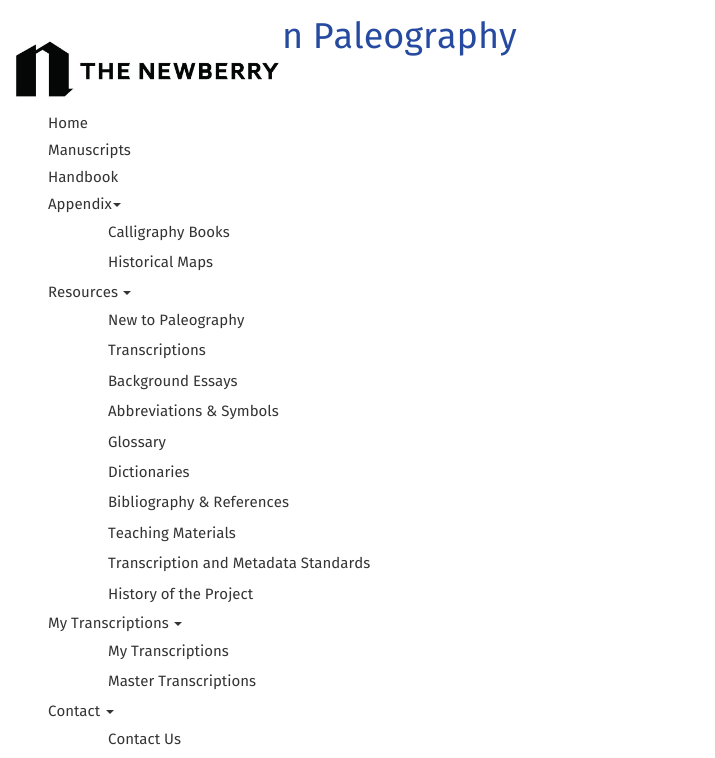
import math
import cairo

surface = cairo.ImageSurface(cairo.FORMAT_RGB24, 715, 758)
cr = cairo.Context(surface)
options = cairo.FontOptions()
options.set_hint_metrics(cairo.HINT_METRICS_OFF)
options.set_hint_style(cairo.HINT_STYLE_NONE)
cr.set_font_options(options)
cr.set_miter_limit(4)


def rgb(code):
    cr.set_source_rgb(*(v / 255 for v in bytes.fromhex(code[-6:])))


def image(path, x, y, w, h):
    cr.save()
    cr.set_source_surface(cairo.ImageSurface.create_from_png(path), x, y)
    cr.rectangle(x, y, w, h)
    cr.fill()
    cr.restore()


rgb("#ffffff")
cr.paint()
image("img/1.png", 15, 35, 265, 62)
rgb("#333333")
cr.new_path()
cr.move_to(113, 203)
cr.line_to(121, 203)
cr.line_to(117, 207)
cr.close_path()
cr.fill()
cr.new_path()
cr.move_to(123, 291)
cr.line_to(131, 291)
cr.line_to(127, 295)
cr.close_path()
cr.fill()
cr.new_path()
cr.move_to(174, 622)
cr.line_to(182, 622)
cr.line_to(178, 626)
cr.close_path()
cr.fill()
cr.new_path()
cr.move_to(106, 710)
cr.line_to(114, 710)
cr.line_to(110, 714)
cr.close_path()
cr.fill()
cr.select_font_face("Fira Sans")
cr.set_font_size(36)
rgb("#264aa0")
cr.move_to(282, 48)
cr.show_text("n Paleography")
cr.set_font_size(15)
rgb("#333333")
for x, y, s in [
    (48, 128, "Home"),
    (48, 155, "Manuscripts"),
    (48, 182, "Handbook"),
    (48, 209, "Appendix"),
    (108, 237, "Calligraphy Books"),
    (108, 267, "Historical Maps"),
    (48, 297, "Resources"),
    (108, 325, "New to Paleography"),
    (108, 355, "Transcriptions"),
    (108, 386, "Background Essays"),
    (108, 416, "Abbreviations & Symbols"),
    (108, 447, "Glossary"),
    (108, 477, "Dictionaries"),
    (108, 507, "Bibliography & References"),
    (108, 538, "Teaching Materials"),
    (108, 568, "Transcription and Metadata Standards"),
    (108, 599, "History of the Project"),
    (48, 628, "My Transcriptions"),
    (108, 656, "My Transcriptions"),
    (108, 686, "Master Transcriptions"),
    (48, 716, "Contact"),
    (108, 744, "Contact Us"),
]:
    cr.move_to(x, y)
    cr.show_text(s)
surface.write_to_png("page.png")
